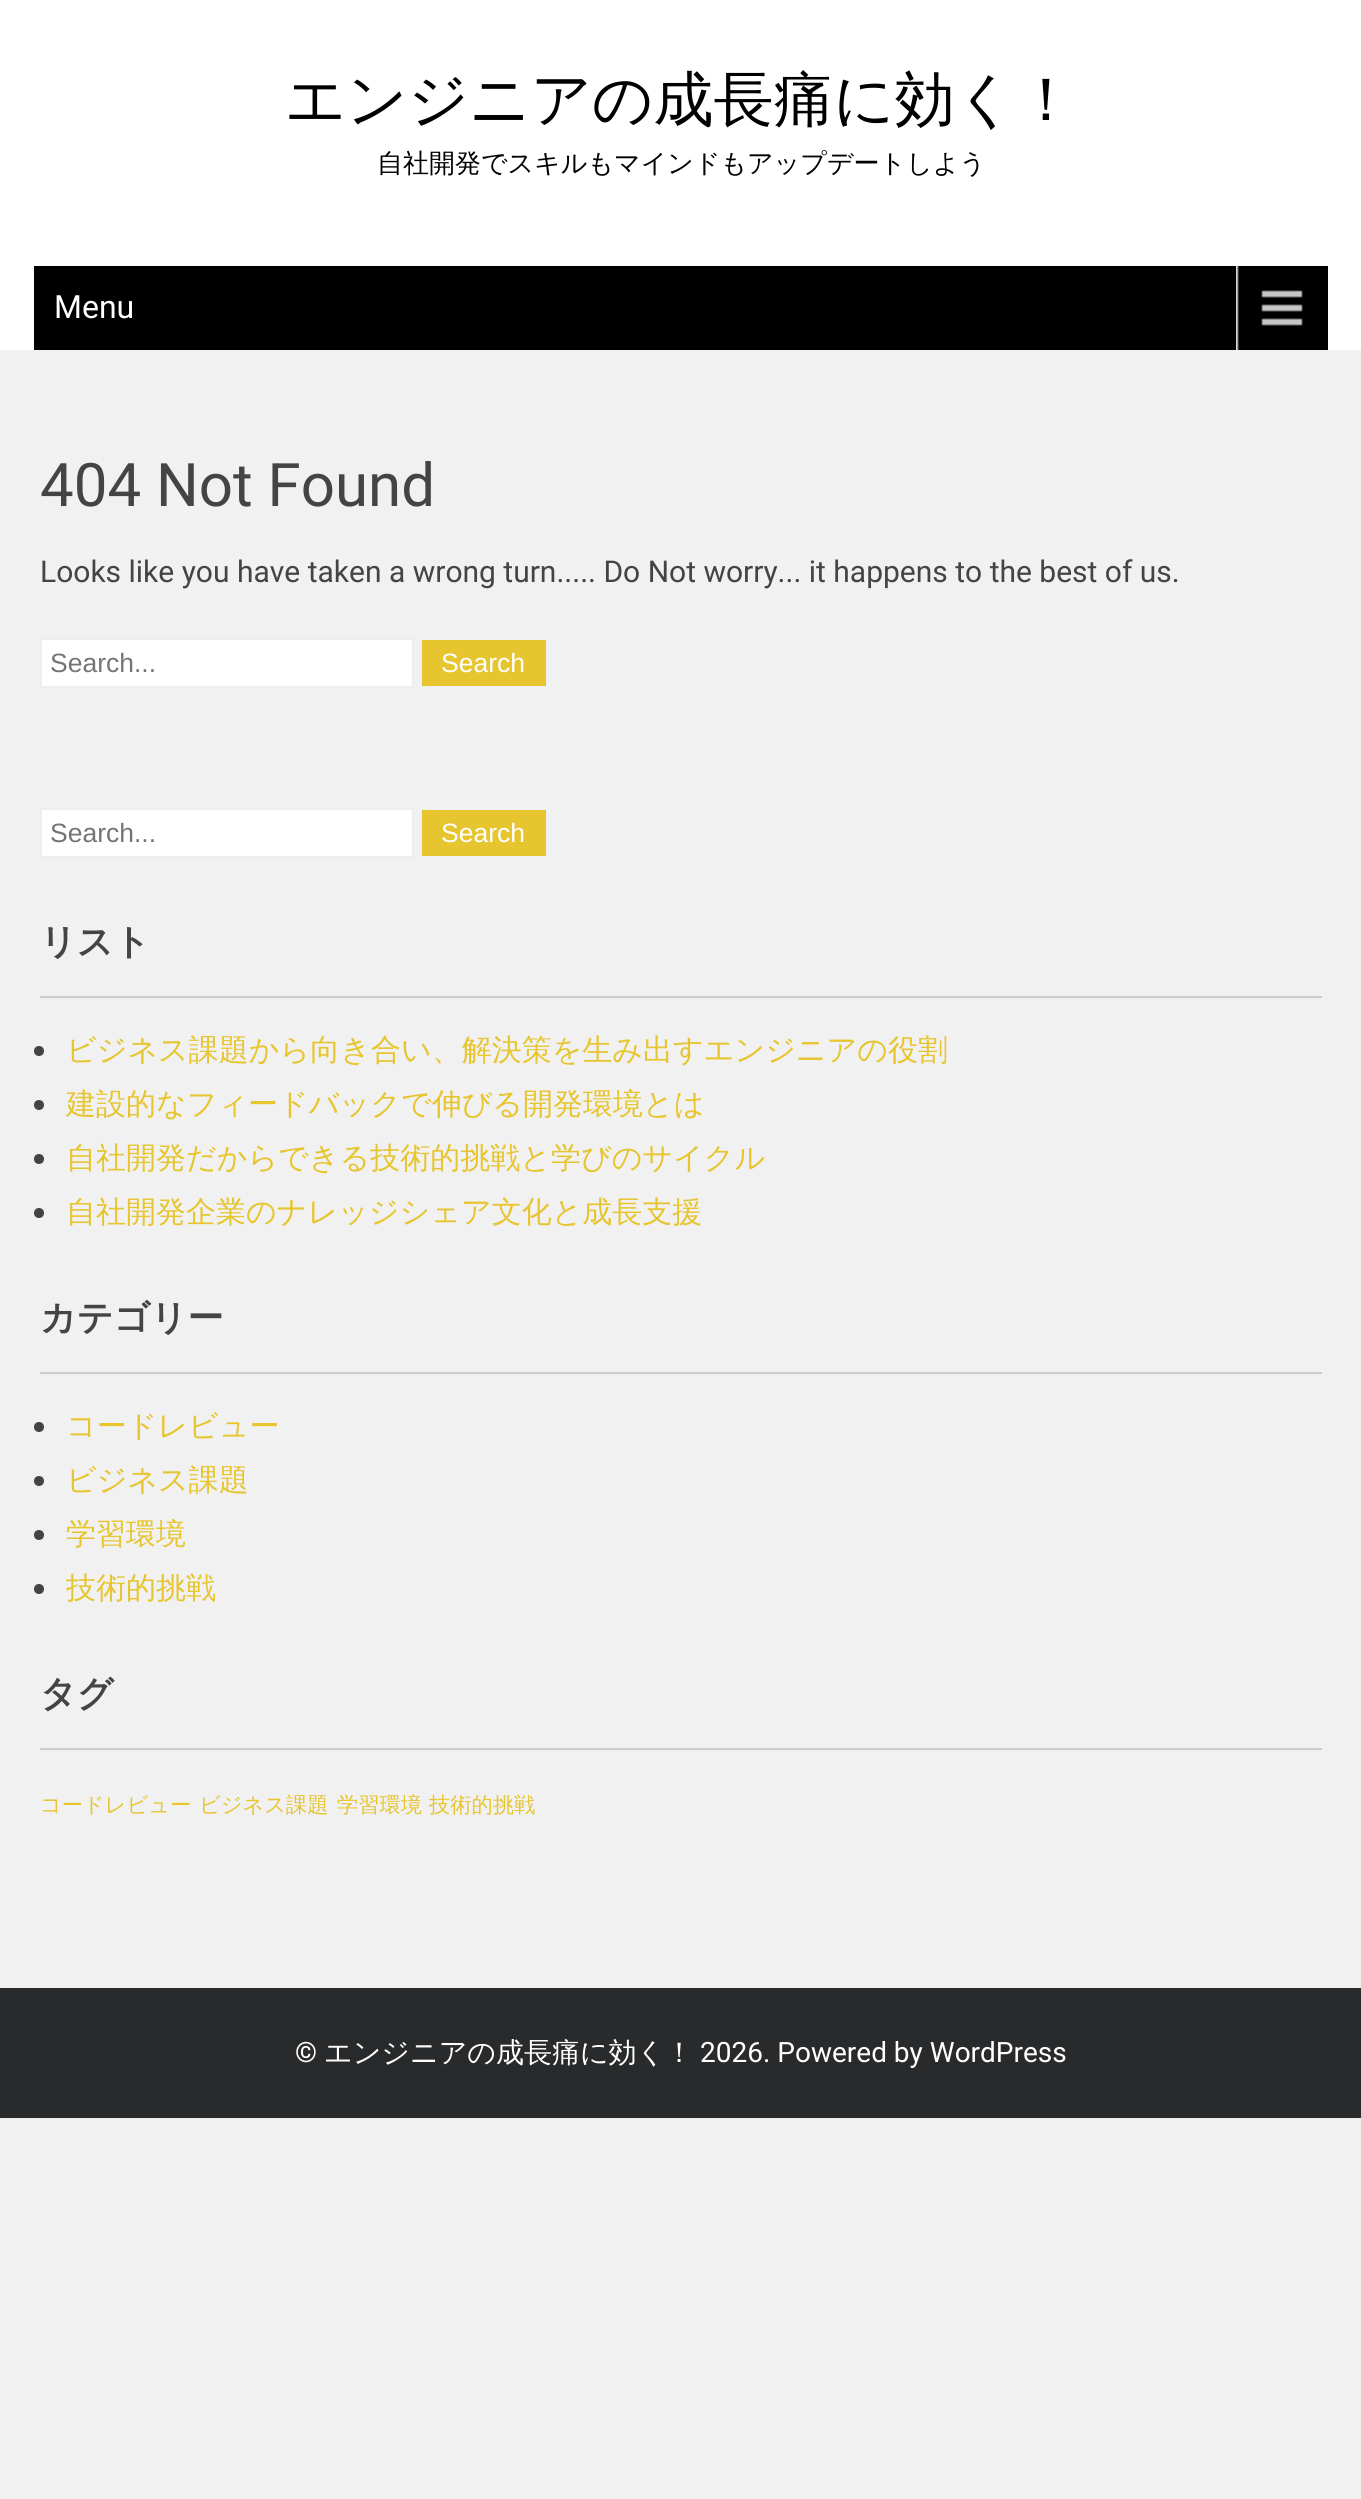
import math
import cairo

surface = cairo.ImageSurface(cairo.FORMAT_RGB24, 1361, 2499)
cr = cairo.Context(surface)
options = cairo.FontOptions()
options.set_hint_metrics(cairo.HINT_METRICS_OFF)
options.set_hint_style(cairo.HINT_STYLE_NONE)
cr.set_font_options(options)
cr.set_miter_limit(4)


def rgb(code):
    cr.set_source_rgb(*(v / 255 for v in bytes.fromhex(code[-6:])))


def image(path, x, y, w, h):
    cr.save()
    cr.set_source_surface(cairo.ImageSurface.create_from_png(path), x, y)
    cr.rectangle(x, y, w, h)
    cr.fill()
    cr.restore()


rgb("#f1f1f1")
cr.paint()
rgb("#ffffff")
cr.rectangle(0, 0, 1361, 350)
cr.fill()
rgb("#000000")
cr.rectangle(34, 266, 1294, 84)
cr.fill()
image("img/1.png", 1236, 266, 67, 84)
rgb("#ffffff")
cr.rectangle(41, 639, 372, 48)
cr.fill_preserve()
rgb("#eeeeee")
cr.stroke()
rgb("#e7c52f")
cr.rectangle(422, 640, 124, 46)
cr.fill()
rgb("#ffffff")
cr.rectangle(41, 809, 372, 48)
cr.fill_preserve()
rgb("#eeeeee")
cr.stroke()
rgb("#e7c52f")
cr.rectangle(422, 810, 124, 46)
cr.fill()
rgb("#cccccc")
cr.rectangle(40, 996, 1282, 2)
cr.fill()
rgb("#444444")
cr.arc(39, 1051, 5, 0, 2 * math.pi)
cr.fill()
cr.arc(39, 1105, 5, 0, 2 * math.pi)
cr.fill()
cr.arc(39, 1159, 5, 0, 2 * math.pi)
cr.fill()
cr.arc(39, 1213, 5, 0, 2 * math.pi)
cr.fill()
rgb("#cccccc")
cr.rectangle(40, 1372, 1282, 2)
cr.fill()
rgb("#444444")
cr.arc(39, 1427, 5, 0, 2 * math.pi)
cr.fill()
cr.arc(39, 1481, 5, 0, 2 * math.pi)
cr.fill()
cr.arc(39, 1535, 5, 0, 2 * math.pi)
cr.fill()
cr.arc(39, 1589, 5, 0, 2 * math.pi)
cr.fill()
rgb("#cccccc")
cr.rectangle(40, 1748, 1282, 2)
cr.fill()
rgb("#282a2b")
cr.rectangle(0, 1988, 1361, 130)
cr.fill()
cr.select_font_face("WenQuanYi Zen Hei Medium")
cr.set_font_size(60)
rgb("#000000")
cr.move_to(285, 120)
cr.show_text("エンジニアの成長痛に効く！")
cr.set_font_size(26)
cr.move_to(377, 172)
cr.show_text("自社開発でスキルもマインドもアップデートしよう")
cr.select_font_face("Roboto")
cr.set_font_size(32)
rgb("#ffffff")
cr.move_to(54, 318)
cr.show_text("Menu")
cr.set_font_size(60)
rgb("#444444")
cr.move_to(40, 506)
cr.show_text("404 Not Found")
cr.set_font_size(30)
cr.move_to(40, 582)
cr.show_text("Looks like you have taken a wrong turn..... Do Not worry... it happens to the best of us.")
cr.select_font_face("Liberation Sans")
cr.set_font_size(26.5)
rgb("#757575")
cr.move_to(50, 672)
cr.show_text("Search...")
rgb("#ffffff")
cr.move_to(441, 672)
cr.show_text("Search")
rgb("#757575")
cr.move_to(50, 842)
cr.show_text("Search...")
rgb("#ffffff")
cr.move_to(441, 842)
cr.show_text("Search")
cr.select_font_face("WenQuanYi Zen Hei", cairo.FONT_SLANT_NORMAL, cairo.FONT_WEIGHT_BOLD)
cr.set_font_size(36)
rgb("#444444")
cr.move_to(40, 954)
cr.show_text("リスト")
cr.select_font_face("WenQuanYi Zen Hei Medium")
cr.set_font_size(30)
rgb("#e7c52f")
for x, y, s in [
    (66, 1060, "ビジネス課題から向き合い、解決策を生み出すエンジニアの役割"),
    (66, 1114, "建設的なフィードバックで伸びる開発環境とは"),
    (66, 1168, "自社開発だからできる技術的挑戦と学びのサイクル"),
    (66, 1222, "自社開発企業のナレッジシェア文化と成長支援"),
]:
    cr.move_to(x, y)
    cr.show_text(s)
cr.select_font_face("WenQuanYi Zen Hei", cairo.FONT_SLANT_NORMAL, cairo.FONT_WEIGHT_BOLD)
cr.set_font_size(36)
rgb("#444444")
cr.move_to(40, 1330)
cr.show_text("カテゴリー")
cr.select_font_face("WenQuanYi Zen Hei Medium")
cr.set_font_size(30)
rgb("#e7c52f")
for x, y, s in [
    (66, 1436, "コードレビュー"),
    (66, 1490, "ビジネス課題"),
    (66, 1544, "学習環境"),
    (66, 1598, "技術的挑戦"),
]:
    cr.move_to(x, y)
    cr.show_text(s)
cr.select_font_face("WenQuanYi Zen Hei", cairo.FONT_SLANT_NORMAL, cairo.FONT_WEIGHT_BOLD)
cr.set_font_size(36)
rgb("#444444")
cr.move_to(40, 1706)
cr.show_text("タグ")
cr.select_font_face("WenQuanYi Zen Hei Medium")
cr.set_font_size(21.25)
rgb("#e7c52f")
for x, y, s in [
    (40, 1812, "コードレビュー"),
    (199, 1812, "ビジネス課題"),
    (337, 1812, "学習環境"),
    (429, 1812, "技術的挑戦"),
]:
    cr.move_to(x, y)
    cr.show_text(s)
cr.select_font_face("Roboto")
cr.set_font_size(28)
rgb("#ffffff")
cr.move_to(295, 2062)
cr.show_text("©")
cr.select_font_face("WenQuanYi Zen Hei Medium")
cr.move_to(324, 2062)
cr.show_text("エンジニアの成長痛に効く！")
cr.select_font_face("Roboto")
cr.move_to(700, 2062)
cr.show_text("2026. Powered by WordPress")
surface.write_to_png("page.png")
